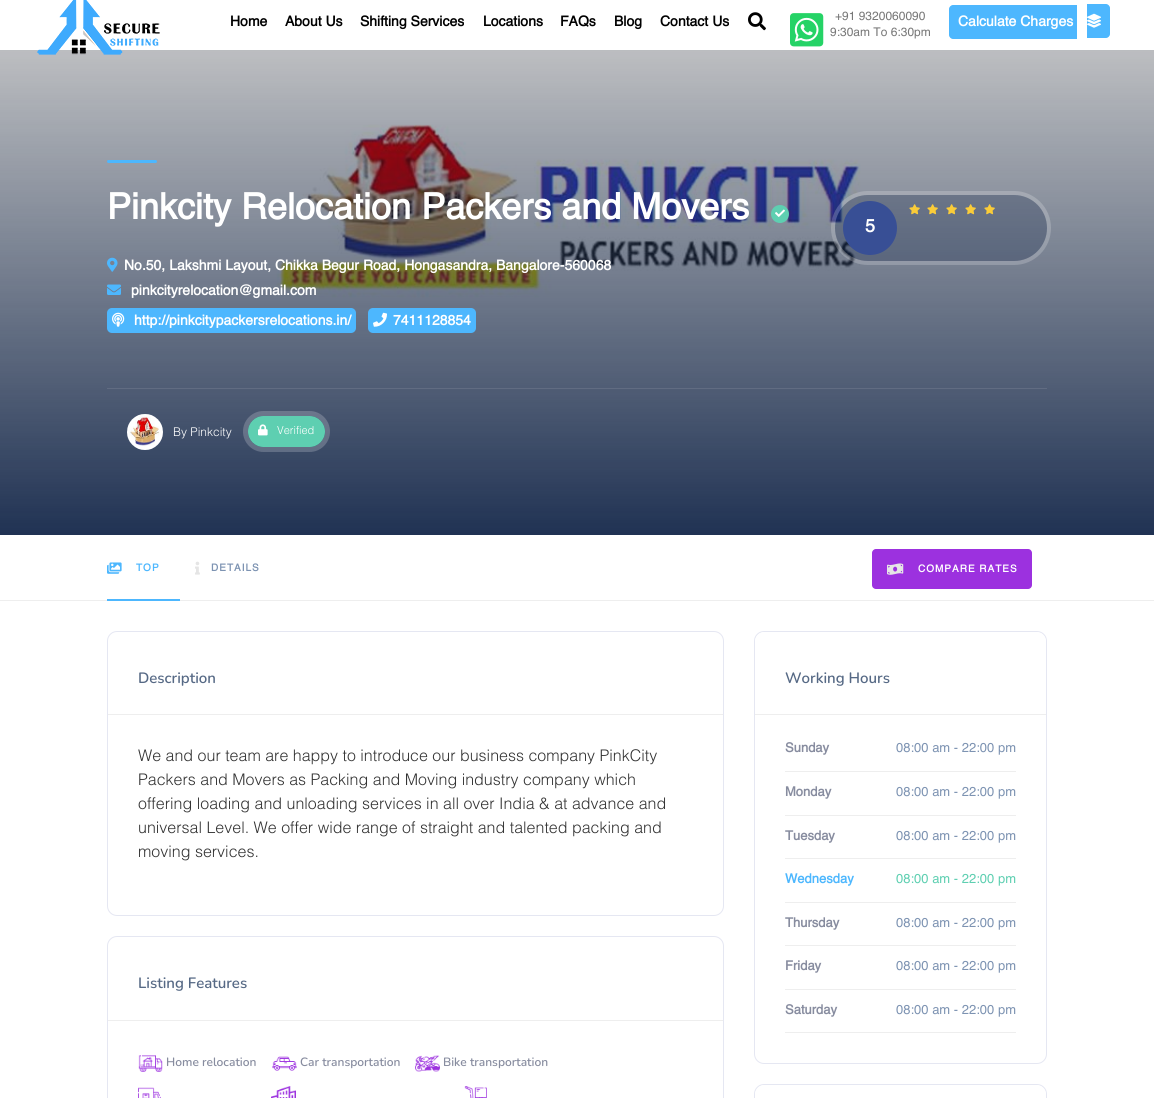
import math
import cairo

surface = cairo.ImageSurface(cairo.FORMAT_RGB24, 1154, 1098)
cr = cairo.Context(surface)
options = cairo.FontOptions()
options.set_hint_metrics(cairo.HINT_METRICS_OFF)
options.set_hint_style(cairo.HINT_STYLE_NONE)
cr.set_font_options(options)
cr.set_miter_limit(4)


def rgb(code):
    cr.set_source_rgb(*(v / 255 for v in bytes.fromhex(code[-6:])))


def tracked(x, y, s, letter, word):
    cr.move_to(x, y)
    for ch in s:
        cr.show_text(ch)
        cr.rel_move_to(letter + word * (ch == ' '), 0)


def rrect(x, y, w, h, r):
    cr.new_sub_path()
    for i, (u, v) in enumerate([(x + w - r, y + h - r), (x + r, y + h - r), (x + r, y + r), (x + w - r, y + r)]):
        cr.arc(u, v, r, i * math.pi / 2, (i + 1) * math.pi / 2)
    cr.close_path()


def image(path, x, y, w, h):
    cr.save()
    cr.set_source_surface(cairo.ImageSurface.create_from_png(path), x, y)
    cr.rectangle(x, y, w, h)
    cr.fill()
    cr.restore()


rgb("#ffffff")
cr.paint()
image("img/5.png", 0, 50, 1154, 485)
image("img/1.png", 37, 0, 123, 55)
image("img/2.png", 748, 12, 18, 19)
image("img/3.png", 790, 13, 34, 34)
rgb("#4db7fe")
cr.new_path()
cr.move_to(953, 5)
cr.line_to(1077, 5)
cr.line_to(1077, 39)
cr.line_to(953, 39)
cr.curve_to(951, 39, 949, 37, 949, 35)
cr.line_to(949, 9)
cr.curve_to(949, 7, 951, 5, 953, 5)
cr.close_path()
cr.fill()
cr.new_path()
cr.move_to(1087, 4)
cr.line_to(1106, 4)
cr.curve_to(1108, 4, 1110, 6, 1110, 8)
cr.line_to(1110, 34)
cr.curve_to(1110, 36, 1108, 38, 1106, 38)
cr.line_to(1087, 38)
cr.close_path()
cr.fill()
image("img/4.png", 1087, 13, 14, 15)
rrect(107, 160, 50, 3, 1.5)
cr.fill()
rgb("#5ecfb1")
cr.arc(780, 214, 9, 0, 2 * math.pi)
cr.fill()
image("img/6.png", 775, 209, 10, 8)
image("img/7.png", 107, 257, 11, 15)
image("img/8.png", 107, 284, 14, 11)
rgb("#4db7fe")
rrect(107, 308, 249, 25, 5)
cr.fill()
image("img/9.png", 112, 312, 13, 15)
rrect(368, 308, 108, 25, 5)
cr.fill()
image("img/10.png", 373, 312, 14, 15)
rrect(833, 193, 216, 70, 35)
cr.set_source_rgba(1, 1, 1, 0.2)
cr.set_line_width(4)
cr.stroke()
cr.set_source_rgba(0.024, 0.106, 0.255, 0.25)
rrect(835, 195, 212, 66, 33)
cr.fill()
image("img/11.png", 909, 204, 11, 11)
image("img/11.png", 927, 204, 11, 11)
image("img/11.png", 946, 204, 11, 11)
image("img/11.png", 965, 204, 11, 11)
image("img/11.png", 984, 204, 11, 11)
rgb("#384f95")
cr.arc(870, 228, 27, 0, 2 * math.pi)
cr.fill()
rgb("#616c82")
cr.rectangle(107, 388, 940, 1)
cr.fill()
image("img/12.png", 127, 414, 36, 36)
rrect(245.5, 413.5, 82, 36, 18)
cr.set_source_rgba(1, 1, 1, 0.2)
cr.set_line_width(5)
cr.stroke()
rgb("#5ecfb1")
rrect(248, 416, 77, 31, 15.5)
cr.fill()
image("img/13.png", 258, 424, 10, 12)
rgb("#eeeeee")
cr.rectangle(0, 600, 1154, 1)
cr.fill()
image("img/14.png", 107, 562, 15, 12)
rgb("#4db7fe")
cr.rectangle(107, 599, 73, 2)
cr.fill()
image("img/15.png", 195, 561, 5, 14)
rgb("#9c31df")
rrect(872, 549, 160, 40, 4)
cr.fill()
image("img/16.png", 887, 563, 17, 12)
rrect(107.5, 631.5, 616, 284, 9.5)
rgb("#e5e7f2")
cr.set_line_width(1)
cr.stroke()
rgb("#eeeeee")
cr.rectangle(108, 714, 615, 1)
cr.fill()
rrect(107.5, 936.5, 616, 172, 9.5)
rgb("#e5e7f2")
cr.stroke()
rgb("#eeeeee")
cr.rectangle(108, 1020, 615, 1)
cr.fill()
image("img/17.png", 138, 1055, 25, 17)
image("img/18.png", 272, 1056, 25, 15)
image("img/19.png", 415, 1055, 25, 17)
image("img/20.png", 138, 1087, 23, 11)
image("img/21.png", 271, 1086, 25, 12)
image("img/22.png", 464, 1086, 23, 12)
rrect(754.5, 631.5, 292, 432, 9.5)
rgb("#e5e7f2")
cr.stroke()
rgb("#ffffff")
cr.new_path()
cr.move_to(765, 632)
cr.line_to(1036, 632)
cr.curve_to(1041.5, 632, 1046, 636.5, 1046, 642)
cr.line_to(1046, 715)
cr.line_to(755, 715)
cr.line_to(755, 642)
cr.curve_to(755, 636.5, 759.5, 632, 765, 632)
cr.close_path()
cr.fill()
for x, y, w, h, color in [
    (755, 714, 291, 1, "#eeeeee"),
    (785, 771, 231, 1, "#eeeeee"),
    (785, 815, 231, 1, "#eeeeee"),
    (785, 858, 231, 1, "#eeeeee"),
    (785, 902, 231, 1, "#eeeeee"),
    (785, 945, 231, 1, "#eeeeee"),
    (785, 989, 231, 1, "#eeeeee"),
    (785, 1032, 231, 1, "#eeeeee"),
]:
    rgb(color)
    cr.rectangle(x, y, w, h)
    cr.fill()
rrect(754.5, 1084.5, 292, 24, 9.5)
rgb("#e5e7f2")
cr.stroke()
rgb("#ffffff")
cr.new_path()
cr.move_to(765, 1085)
cr.line_to(1036, 1085)
cr.curve_to(1041.5, 1085, 1046, 1089.5, 1046, 1095)
cr.line_to(1046, 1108)
cr.line_to(755, 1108)
cr.line_to(755, 1095)
cr.curve_to(755, 1089.5, 759.5, 1085, 765, 1085)
cr.close_path()
cr.fill()
cr.select_font_face("Helvetica", cairo.FONT_SLANT_NORMAL, cairo.FONT_WEIGHT_BOLD)
cr.set_font_size(14)
rgb("#000000")
for x, y, s in [
    (230, 26, "Home"),
    (285, 26, "About Us"),
    (360, 26, "Shifting Services"),
    (483, 26, "Locations"),
    (560, 26, "FAQs"),
    (614, 26, "Blog"),
    (660, 26, "Contact Us"),
]:
    cr.move_to(x, y)
    cr.show_text(s)
cr.select_font_face("Helvetica")
cr.set_font_size(12)
rgb("#777777")
cr.move_to(835, 20)
cr.show_text("+91 9320060090")
cr.move_to(830, 36)
cr.show_text("9:30am To 6:30pm")
cr.select_font_face("Helvetica", cairo.FONT_SLANT_NORMAL, cairo.FONT_WEIGHT_BOLD)
cr.set_font_size(14)
rgb("#ffffff")
cr.move_to(958, 26)
cr.show_text("Calculate Charges")
cr.set_font_size(36)
cr.move_to(107, 219)
cr.show_text("Pinkcity Relocation Packers and Movers")
cr.set_font_size(14)
for x, y, s in [
    (124, 270, "No.50, Lakshmi Layout, Chikka Begur Road, Hongasandra, Bangalore-560068"),
    (131, 295, "pinkcityrelocation@gmail.com"),
    (134, 325, "http://pinkcitypackersrelocations.in/"),
    (393, 325, "7411128854"),
]:
    cr.move_to(x, y)
    cr.show_text(s)
cr.set_font_size(18)
cr.move_to(865, 232)
cr.show_text("5")
cr.select_font_face("Helvetica Light")
cr.set_font_size(12)
cr.move_to(173, 436)
cr.show_text("By Pinkcity")
cr.set_font_size(11)
cr.move_to(277, 434)
cr.show_text("Verified")
cr.select_font_face("Helvetica", cairo.FONT_SLANT_NORMAL, cairo.FONT_WEIGHT_BOLD)
cr.set_font_size(10)
rgb("#4db7fe")
tracked(136, 571, "TOP", 1, 0)
rgb("#7d93b2")
tracked(211, 571, "DETAILS", 1, 0)
rgb("#ffffff")
tracked(918, 572, "COMPARE RATES", 1, 0)
cr.select_font_face("Nunito SemiBold")
cr.set_font_size(15)
rgb("#566985")
cr.move_to(138, 683)
cr.show_text("Description")
cr.select_font_face("Helvetica Light")
cr.set_font_size(16)
rgb("#333333")
for x, y, s in [
    (138, 761, "We and our team are happy to introduce our business company PinkCity"),
    (138, 785, "Packers and Movers as Packing and Moving industry company which"),
    (138, 809, "offering loading and unloading services in all over India & at advance and"),
    (138, 833, "universal Level. We offer wide range of straight and talented packing and"),
    (138, 857, "moving services."),
]:
    cr.move_to(x, y)
    cr.show_text(s)
cr.select_font_face("Nunito SemiBold")
cr.set_font_size(15)
rgb("#566985")
cr.move_to(138, 988)
cr.show_text("Listing Features")
cr.set_font_size(12)
rgb("#878c9f")
for x, y, s in [
    (166, 1066, "Home relocation"),
    (300, 1066, "Car transportation"),
    (443, 1066, "Bike transportation"),
]:
    cr.move_to(x, y)
    cr.show_text(s)
cr.set_font_size(15)
rgb("#566985")
cr.move_to(785, 683)
cr.show_text("Working Hours")
cr.select_font_face("Helvetica", cairo.FONT_SLANT_NORMAL, cairo.FONT_WEIGHT_BOLD)
cr.set_font_size(13)
rgb("#878c9f")
cr.move_to(785, 752)
cr.show_text("Sunday")
cr.select_font_face("Helvetica")
rgb("#7d93b2")
cr.move_to(896, 752)
cr.show_text("08:00 am - 22:00 pm")
cr.select_font_face("Helvetica", cairo.FONT_SLANT_NORMAL, cairo.FONT_WEIGHT_BOLD)
rgb("#878c9f")
cr.move_to(785, 796)
cr.show_text("Monday")
cr.select_font_face("Helvetica")
rgb("#7d93b2")
cr.move_to(896, 796)
cr.show_text("08:00 am - 22:00 pm")
cr.select_font_face("Helvetica", cairo.FONT_SLANT_NORMAL, cairo.FONT_WEIGHT_BOLD)
rgb("#878c9f")
cr.move_to(785, 840)
cr.show_text("Tuesday")
cr.select_font_face("Helvetica")
rgb("#7d93b2")
cr.move_to(896, 840)
cr.show_text("08:00 am - 22:00 pm")
cr.select_font_face("Helvetica", cairo.FONT_SLANT_NORMAL, cairo.FONT_WEIGHT_BOLD)
rgb("#4db7fe")
cr.move_to(785, 883)
cr.show_text("Wednesday")
cr.select_font_face("Helvetica")
rgb("#5ecfb1")
cr.move_to(896, 883)
cr.show_text("08:00 am - 22:00 pm")
cr.select_font_face("Helvetica", cairo.FONT_SLANT_NORMAL, cairo.FONT_WEIGHT_BOLD)
rgb("#878c9f")
cr.move_to(785, 927)
cr.show_text("Thursday")
cr.select_font_face("Helvetica")
rgb("#7d93b2")
cr.move_to(896, 927)
cr.show_text("08:00 am - 22:00 pm")
cr.select_font_face("Helvetica", cairo.FONT_SLANT_NORMAL, cairo.FONT_WEIGHT_BOLD)
rgb("#878c9f")
cr.move_to(785, 970)
cr.show_text("Friday")
cr.select_font_face("Helvetica")
rgb("#7d93b2")
cr.move_to(896, 970)
cr.show_text("08:00 am - 22:00 pm")
cr.select_font_face("Helvetica", cairo.FONT_SLANT_NORMAL, cairo.FONT_WEIGHT_BOLD)
rgb("#878c9f")
cr.move_to(785, 1014)
cr.show_text("Saturday")
cr.select_font_face("Helvetica")
rgb("#7d93b2")
cr.move_to(896, 1014)
cr.show_text("08:00 am - 22:00 pm")
surface.write_to_png("page.png")
